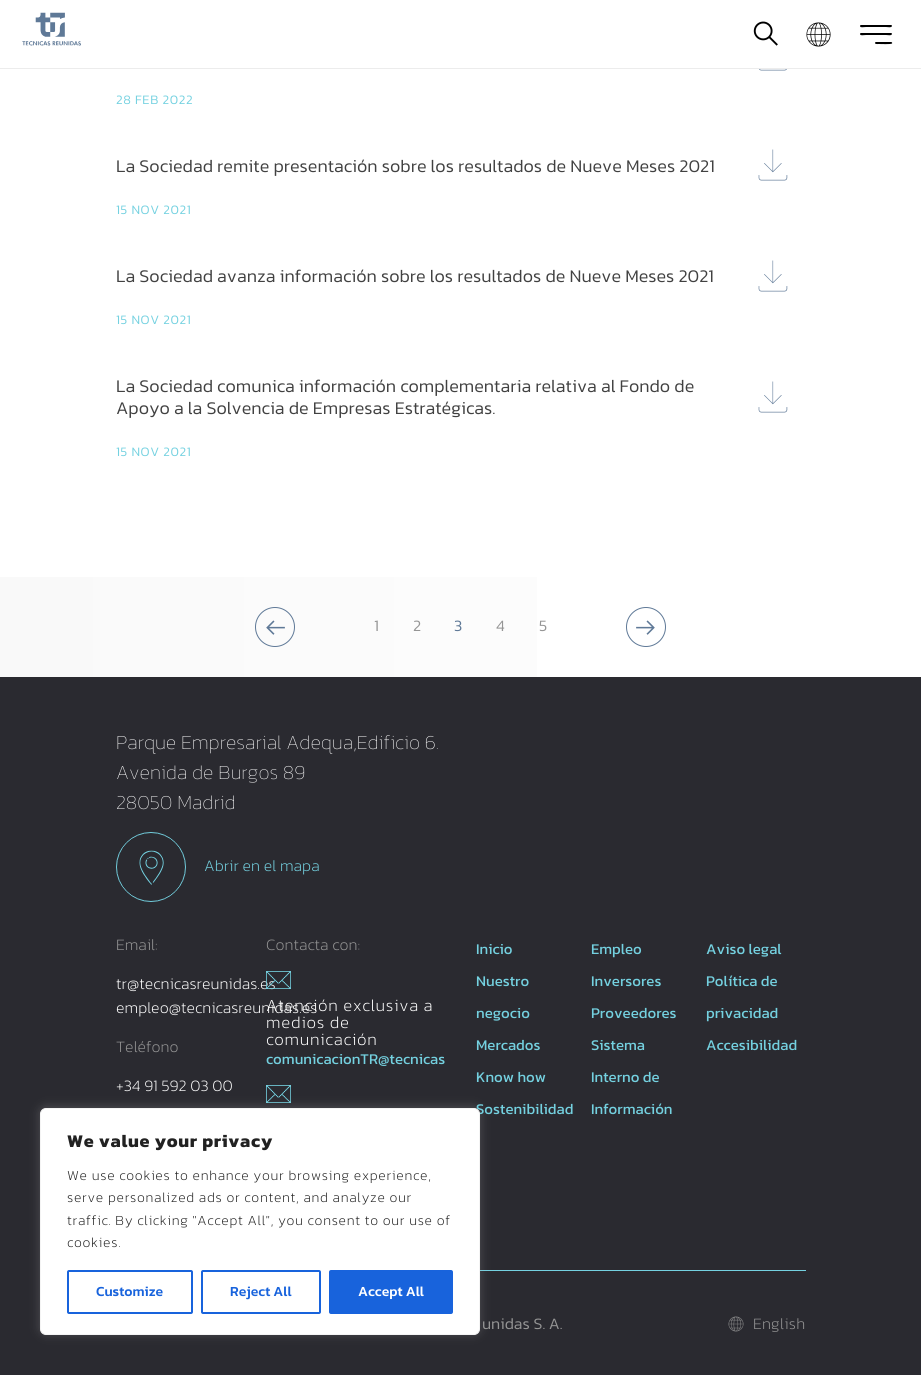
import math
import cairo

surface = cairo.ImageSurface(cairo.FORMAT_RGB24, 921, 1375)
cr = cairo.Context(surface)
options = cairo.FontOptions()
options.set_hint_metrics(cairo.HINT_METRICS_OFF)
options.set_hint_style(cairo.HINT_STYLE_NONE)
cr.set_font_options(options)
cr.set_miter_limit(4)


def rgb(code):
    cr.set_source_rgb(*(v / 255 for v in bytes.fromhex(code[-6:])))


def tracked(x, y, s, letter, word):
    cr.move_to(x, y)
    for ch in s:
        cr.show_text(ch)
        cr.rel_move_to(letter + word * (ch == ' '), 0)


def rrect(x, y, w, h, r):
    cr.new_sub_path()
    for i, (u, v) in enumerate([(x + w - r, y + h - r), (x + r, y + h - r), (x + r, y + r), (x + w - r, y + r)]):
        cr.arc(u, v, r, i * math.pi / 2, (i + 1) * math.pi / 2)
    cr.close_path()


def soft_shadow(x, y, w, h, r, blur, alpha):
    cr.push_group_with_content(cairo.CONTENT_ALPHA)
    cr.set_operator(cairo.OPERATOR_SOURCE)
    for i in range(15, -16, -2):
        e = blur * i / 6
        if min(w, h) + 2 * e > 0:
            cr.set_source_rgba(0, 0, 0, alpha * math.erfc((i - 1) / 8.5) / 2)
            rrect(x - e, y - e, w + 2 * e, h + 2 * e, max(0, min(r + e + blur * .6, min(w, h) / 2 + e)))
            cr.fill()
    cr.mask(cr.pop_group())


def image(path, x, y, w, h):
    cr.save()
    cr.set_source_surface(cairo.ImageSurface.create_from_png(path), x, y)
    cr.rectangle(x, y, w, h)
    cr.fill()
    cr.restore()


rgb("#ffffff")
cr.paint()
rgb("#ececec")
cr.rectangle(0, 68, 921, 1)
cr.fill()
image("img/1.png", 22, 12, 59, 34)
image("img/2.png", 753, 21, 25, 25)
image("img/3.png", 806, 22, 25, 25)
rgb("#000000")
cr.new_path()
cr.move_to(891, 25)
cr.line_to(860.5, 25)
cr.line_to(860, 26)
cr.curve_to(860, 28, 864, 27, 866, 27)
cr.line_to(886, 27)
cr.curve_to(887.5, 27, 891.5, 28, 892, 26)
cr.curve_to(892, 25.5, 891.5, 25, 891, 25)
cr.close_path()
cr.move_to(891, 33)
cr.line_to(860.5, 33)
cr.line_to(860, 34)
cr.curve_to(860, 36, 864, 35, 866, 35)
cr.line_to(886, 35)
cr.curve_to(887.5, 35, 891.5, 36, 892, 34)
cr.curve_to(892, 33.5, 891.5, 33, 891, 33)
cr.close_path()
cr.move_to(891, 42)
cr.line_to(876, 42)
cr.line_to(875, 42.5)
cr.curve_to(874.5, 44.5, 878, 44, 878.5, 44)
cr.curve_to(880.5, 44, 891, 44.5, 892, 43.5)
cr.curve_to(892.5, 43, 892, 42, 891, 42)
cr.close_path()
cr.fill()
image("img/4.png", 759, 69, 28, 2)
image("img/5.png", 758, 149, 30, 32)
image("img/5.png", 758, 260, 30, 32)
image("img/5.png", 758, 381, 30, 32)
gradient = cairo.LinearGradient(0, 627, 921, 627)
gradient.add_color_stop_rgba(0, 0.976, 0.976, 0.976, 1)
gradient.add_color_stop_rgba(1, 1, 1, 1, 1)
cr.set_source(gradient)
cr.rectangle(0, 577, 537, 100)
cr.fill()
cr.arc(275, 627, 19.5, 0, 2 * math.pi)
rgb("#5f7997")
cr.set_line_width(1)
cr.stroke()
image("img/6.png", 266, 620, 19, 15)
cr.arc(646, 627, 19.5, 0, 2 * math.pi)
cr.stroke()
image("img/7.png", 636, 620, 19, 15)
rgb("#2a2a30")
cr.rectangle(0, 677, 921, 698)
cr.fill()
image("img/8.png", 116, 832, 70, 70)
image("img/10.png", 266, 1085, 25, 18)
rgb("#74d1e0")
cr.rectangle(480, 1270, 326, 1)
cr.fill()
image("img/11.png", 728, 1316, 16, 16)
rgb("#acabab")
soft_shadow(40, 1107, 440, 227, 6, 5, 0.3)
cr.select_font_face("Kanit Light")
cr.set_font_size(13)
rgb("#74d1e0")
tracked(116, 104, "28 FEB 2022", 0.6, 0)
cr.set_font_size(18)
rgb("#414141")
cr.move_to(116, 172)
cr.show_text("La Sociedad remite presentación sobre los resultados de Nueve Meses 2021")
cr.set_font_size(13)
rgb("#74d1e0")
tracked(116, 214, "15 NOV 2021", 0.6, 0)
cr.set_font_size(18)
rgb("#414141")
cr.move_to(116, 282)
cr.show_text("La Sociedad avanza información sobre los resultados de Nueve Meses 2021")
cr.set_font_size(13)
rgb("#74d1e0")
tracked(116, 324, "15 NOV 2021", 0.6, 0)
cr.set_font_size(18)
rgb("#414141")
cr.move_to(116, 392)
cr.show_text("La Sociedad comunica información complementaria relativa al Fondo de")
cr.move_to(116, 414)
cr.show_text("Apoyo a la Solvencia de Empresas Estratégicas.")
cr.set_font_size(13)
rgb("#74d1e0")
tracked(116, 456, "15 NOV 2021", 0.6, 0)
cr.set_font_size(16)
rgb("#959595")
cr.move_to(374, 631)
cr.show_text("1")
cr.move_to(413, 631)
cr.show_text("2")
rgb("#5f7997")
cr.move_to(454, 631)
cr.show_text("3")
rgb("#959595")
cr.move_to(496, 631)
cr.show_text("4")
cr.move_to(539, 631)
cr.show_text("5")
cr.select_font_face("Kanit Thin")
cr.set_font_size(20)
rgb("#ffffff")
for x, y, s in [
    (116, 749, "Parque Empresarial Adequa,Edificio 6."),
    (116, 779, "Avenida de Burgos 89"),
    (116, 809, "28050 Madrid"),
]:
    cr.move_to(x, y)
    cr.show_text(s)
cr.select_font_face("Kanit ExtraLight")
cr.set_font_size(16)
rgb("#74d1e0")
cr.move_to(204, 871)
cr.show_text("Abrir en el mapa")
rgb("#959595")
cr.move_to(116, 950)
cr.show_text("Email:")
rgb("#ffffff")
cr.move_to(116, 989)
cr.show_text("tr@tecnicasreunidas.es")
cr.move_to(116, 1013)
cr.show_text("empleo@tecnicasreunidas.es")
rgb("#959595")
cr.move_to(116, 1052)
cr.show_text("Teléfono")
rgb("#ffffff")
cr.move_to(116, 1091)
cr.show_text("+34 91 592 03 00")
rgb("#959595")
cr.move_to(266, 950)
cr.show_text("Contacta con:")
image("img/9.png", 266, 971, 25, 18)
cr.set_font_size(17)
rgb("#ffffff")
for x, y, s in [
    (266, 1011, "Atención exclusiva a"),
    (266, 1028, "medios de"),
    (266, 1045, "comunicación"),
]:
    tracked(x, y, s, 0.68, 0)
cr.select_font_face("Kanit")
cr.set_font_size(15)
rgb("#74d1e0")
for x, y, s in [
    (266, 1064, "comunicacionTR@tecnicas"),
    (476, 954, "Inicio"),
    (591, 954, "Empleo"),
    (706, 954, "Aviso legal"),
    (476, 986, "Nuestro"),
    (476, 1018, "negocio"),
    (591, 986, "Inversores"),
    (706, 986, "Política de"),
    (706, 1018, "privacidad"),
    (591, 1018, "Proveedores"),
    (476, 1050, "Mercados"),
    (591, 1050, "Sistema"),
    (591, 1082, "Interno de"),
    (591, 1114, "Información"),
    (706, 1050, "Accesibilidad"),
    (476, 1082, "Know how"),
    (476, 1114, "Sostenibilidad"),
]:
    cr.move_to(x, y)
    cr.show_text(s)
cr.select_font_face("Kanit Light")
cr.set_font_size(16)
rgb("#959595")
cr.move_to(482, 1329)
cr.show_text("unidas S. A.")
cr.select_font_face("Kanit ExtraLight")
tracked(753, 1329, "English", 0.25, 0)
rgb("#ffffff")
rrect(40.5, 1108.5, 439, 226, 5.5)
cr.fill_preserve()
rgb("#f4f4f4")
cr.stroke()
cr.select_font_face("Kanit", cairo.FONT_SLANT_NORMAL, cairo.FONT_WEIGHT_BOLD)
cr.set_font_size(18)
rgb("#212121")
tracked(67, 1147, "We value your privacy", 0.68, 0)
cr.select_font_face("Kanit ExtraLight")
cr.set_font_size(14)
for x, y, s in [
    (67, 1180, "We use cookies to enhance your browsing experience,"),
    (67, 1202, "serve personalized ads or content, and analyze our"),
    (67, 1225, "traffic. By clicking \"Accept All\", you consent to our use of"),
    (67, 1247, "cookies."),
]:
    tracked(x, y, s, 0.68, 0)
rrect(68, 1271, 124, 42, 1)
rgb("#1863dc")
cr.set_line_width(2)
cr.stroke()
cr.select_font_face("Kanit Medium")
cr.move_to(96, 1296)
cr.show_text("Customize")
rrect(202, 1271, 118, 42, 1)
cr.stroke()
cr.move_to(230, 1296)
cr.show_text("Reject All")
rrect(330, 1271, 122, 42, 1)
cr.fill_preserve()
cr.stroke()
rgb("#ffffff")
cr.move_to(358, 1296)
cr.show_text("Accept All")
surface.write_to_png("page.png")
